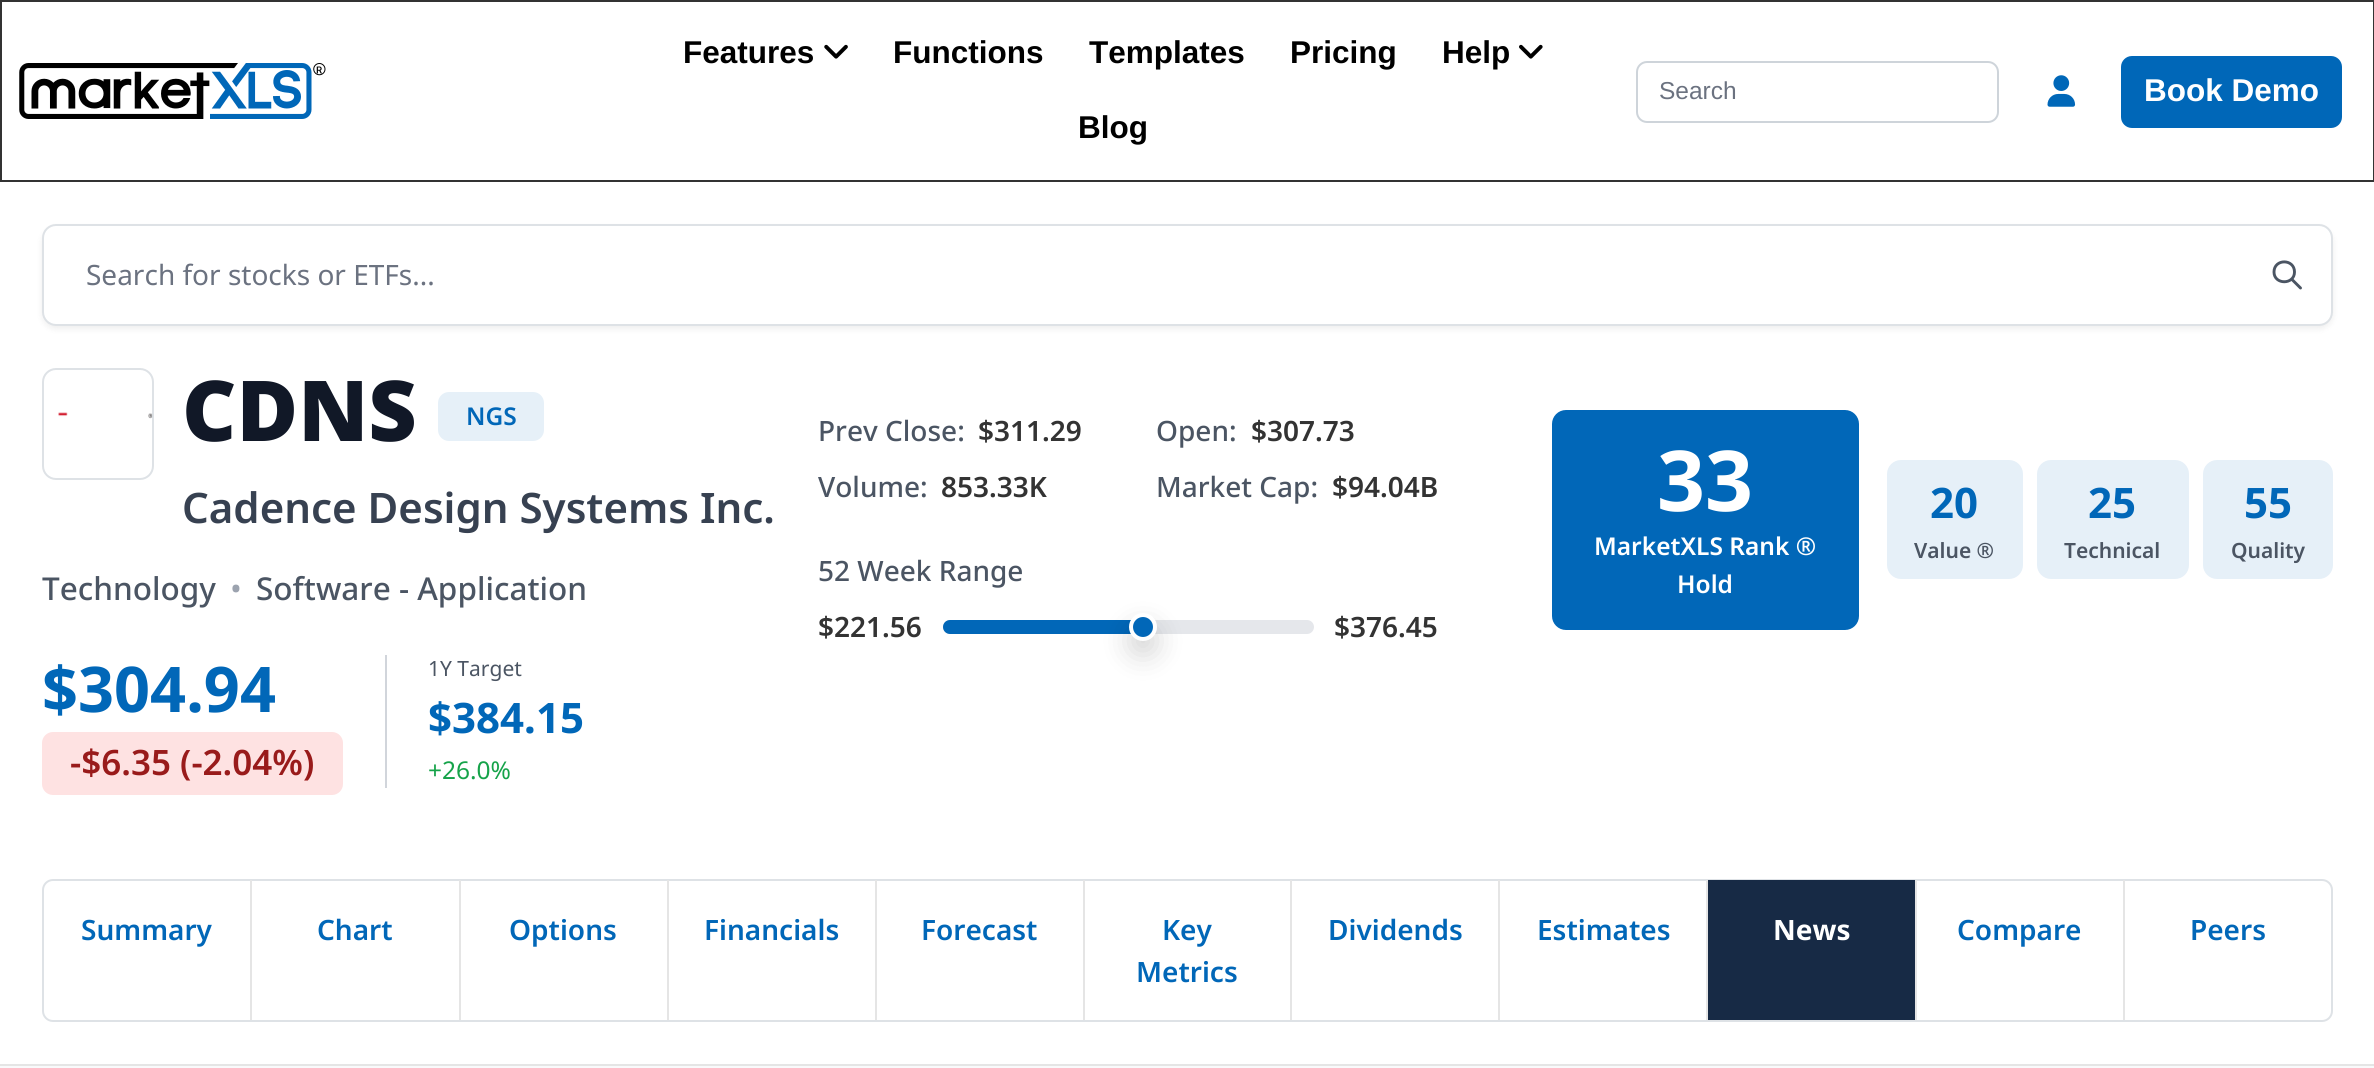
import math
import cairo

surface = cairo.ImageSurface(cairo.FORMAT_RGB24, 2374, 1068)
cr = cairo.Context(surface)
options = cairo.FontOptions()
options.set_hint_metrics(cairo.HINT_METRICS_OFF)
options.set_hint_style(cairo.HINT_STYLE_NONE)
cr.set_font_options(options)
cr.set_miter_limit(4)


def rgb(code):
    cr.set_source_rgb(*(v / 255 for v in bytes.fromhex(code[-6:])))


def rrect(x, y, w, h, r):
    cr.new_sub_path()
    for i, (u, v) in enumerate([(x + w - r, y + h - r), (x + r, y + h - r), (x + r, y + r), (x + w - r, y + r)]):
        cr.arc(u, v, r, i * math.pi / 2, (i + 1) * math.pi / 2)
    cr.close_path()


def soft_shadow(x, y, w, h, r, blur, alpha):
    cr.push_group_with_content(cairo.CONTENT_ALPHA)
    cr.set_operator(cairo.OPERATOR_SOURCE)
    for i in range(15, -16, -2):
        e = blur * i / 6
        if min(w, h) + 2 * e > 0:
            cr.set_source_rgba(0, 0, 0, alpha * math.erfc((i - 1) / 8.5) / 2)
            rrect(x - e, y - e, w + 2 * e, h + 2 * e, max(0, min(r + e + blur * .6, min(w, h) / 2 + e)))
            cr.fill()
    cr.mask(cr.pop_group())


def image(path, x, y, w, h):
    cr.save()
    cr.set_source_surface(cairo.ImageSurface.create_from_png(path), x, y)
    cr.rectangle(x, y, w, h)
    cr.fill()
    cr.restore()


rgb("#ffffff")
cr.paint()
cr.rectangle(1, 1, 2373, 180)
rgb("#333333")
cr.stroke()
image("img/1.png", 19, 63, 307, 56)
image("img/2.png", 824, 44, 24, 15)
image("img/3.png", 1519, 44, 24, 15)
rrect(1637, 62, 361, 60, 10)
rgb("#ced4da")
cr.stroke()
image("img/4.png", 2047, 75, 29, 32)
rgb("#0067b8")
rrect(2122, 57, 219, 70, 10)
cr.fill_preserve()
cr.stroke()
rgb("#f9fafb")
cr.rectangle(0, 1066, 2374, 2)
cr.fill()
rgb("#e5e5e5")
cr.rectangle(0, 1064, 2374, 2)
cr.fill()
rgb("#000000")
soft_shadow(42, 228, 2291, 101, 14, 3.5, 0.07)
rgb("#ffffff")
rrect(43, 225, 2289, 100, 13)
cr.fill_preserve()
rgb("#dee2e6")
cr.stroke()
cr.new_path()
cr.move_to(2300.5, 288)
cr.line_to(2291.5, 279)
cr.move_to(2294.5, 272)
cr.curve_to(2294.5, 285, 2274, 285, 2274, 272)
cr.curve_to(2274, 258.5, 2294.5, 258.5, 2294.5, 272)
cr.close_path()
rgb("#4b5563")
cr.set_line_width(2.9)
cr.set_line_cap(cairo.LINE_CAP_ROUND)
cr.set_line_join(cairo.LINE_JOIN_ROUND)
cr.stroke()
rrect(43, 369, 110, 110, 13)
rgb("#dee2e6")
cr.set_line_width(2)
cr.set_line_cap(cairo.LINE_CAP_BUTT)
cr.set_line_join(cairo.LINE_JOIN_MITER)
cr.stroke()
image("img/5.png", 58, 412, 95, 7)
rgb("#e6f0f8")
rrect(438, 392, 106, 49, 11)
cr.fill()
rgb("#fee2e2")
rrect(42, 732, 301, 63, 11)
cr.fill()
rgb("#d1d5db")
cr.rectangle(385, 655, 2, 133)
cr.fill()
rgb("#e5e7eb")
rrect(943, 620, 371, 14, 7)
cr.fill()
rgb("#0167b8")
rrect(943, 620, 200, 14, 7)
cr.fill()
rgb("#000000")
soft_shadow(1129, 627, 28, 28, 14, 14, 0.15)
rgb("#0167b8")
cr.arc(1143, 627, 12, 0, 2 * math.pi)
cr.fill_preserve()
rgb("#ffffff")
cr.set_line_width(4)
cr.stroke()
rgb("#0167b8")
rrect(1552, 410, 307, 220, 14)
cr.fill()
rgb("#e6f0f8")
rrect(1887, 460, 136, 119, 14)
cr.fill()
rrect(2037, 460, 152, 119, 14)
cr.fill()
rrect(2203, 460, 130, 119, 14)
cr.fill()
rrect(43, 880, 2289, 141, 10)
rgb("#dee2e6")
cr.set_line_width(2)
cr.stroke()
for x, y, w, h, color in [
    (250, 880, 2, 140, "#e5e5e5"),
    (459, 880, 2, 140, "#e5e5e5"),
    (667, 880, 2, 140, "#e5e5e5"),
    (875, 880, 2, 140, "#e5e5e5"),
    (1083, 880, 2, 140, "#e5e5e5"),
    (1290, 880, 2, 140, "#e5e5e5"),
    (1498, 880, 2, 140, "#e5e5e5"),
    (1706, 880, 2, 140, "#e5e5e5"),
    (1708, 880, 207, 140, "#172a45"),
    (1915, 880, 2, 140, "#e5e5e5"),
    (2123, 880, 2, 140, "#e5e5e5"),
]:
    rgb(color)
    cr.rectangle(x, y, w, h)
    cr.fill()
cr.select_font_face("Liberation Sans", cairo.FONT_SLANT_NORMAL, cairo.FONT_WEIGHT_BOLD)
cr.set_font_size(31.5)
rgb("#000000")
for x, y, s in [
    (683, 63, "Features"),
    (893, 63, "Functions"),
    (1089, 63, "Templates"),
    (1290, 63, "Pricing"),
    (1442, 63, "Help"),
    (1078, 138, "Blog"),
]:
    cr.move_to(x, y)
    cr.show_text(s)
cr.select_font_face("Liberation Sans")
cr.set_font_size(24.5)
rgb("#6b7280")
cr.move_to(1659, 99)
cr.show_text("Search")
cr.select_font_face("Liberation Sans", cairo.FONT_SLANT_NORMAL, cairo.FONT_WEIGHT_BOLD)
cr.set_font_size(31.5)
rgb("#ffffff")
cr.move_to(2144, 101)
cr.show_text("Book Demo")
cr.select_font_face("Noto Sans")
cr.set_font_size(28)
rgb("#6b7280")
cr.move_to(86, 285)
cr.show_text("Search for stocks or ETFs...")
cr.select_font_face("Noto Sans Black")
cr.set_font_size(84)
rgb("#111827")
cr.move_to(182, 441)
cr.show_text("CDNS")
cr.select_font_face("Noto Sans SemiBold")
cr.set_font_size(24.5)
rgb("#0167b8")
cr.move_to(466, 425)
cr.show_text("NGS")
cr.set_font_size(42)
rgb("#374151")
cr.move_to(182, 523)
cr.show_text("Cadence Design Systems Inc.")
cr.select_font_face("Noto Sans Medium")
cr.set_font_size(31.5)
rgb("#4b5563")
cr.move_to(42, 600)
cr.show_text("Technology")
cr.select_font_face("Noto Sans")
rgb("#9ca3af")
cr.move_to(230, 600)
cr.show_text("•")
cr.select_font_face("Noto Sans Medium")
rgb("#4b5563")
cr.move_to(256, 600)
cr.show_text("Software - Application")
cr.select_font_face("Noto Sans", cairo.FONT_SLANT_NORMAL, cairo.FONT_WEIGHT_BOLD)
cr.set_font_size(63)
rgb("#0167b8")
cr.move_to(42, 712)
cr.show_text("$304.94")
cr.select_font_face("Noto Sans SemiBold")
cr.set_font_size(35)
rgb("#991b1b")
cr.move_to(70, 775)
cr.show_text("-$6.35 (-2.04%)")
cr.select_font_face("Noto Sans")
cr.set_font_size(21)
rgb("#4b5563")
cr.move_to(428, 676)
cr.show_text("1Y Target")
cr.select_font_face("Noto Sans", cairo.FONT_SLANT_NORMAL, cairo.FONT_WEIGHT_BOLD)
cr.set_font_size(42)
rgb("#0167b8")
cr.move_to(428, 733)
cr.show_text("$384.15")
cr.select_font_face("Noto Sans")
cr.set_font_size(24.5)
rgb("#16a34a")
cr.move_to(428, 779)
cr.show_text("+26.0%")
cr.select_font_face("Noto Sans Medium")
cr.set_font_size(28)
rgb("#4b5563")
cr.move_to(818, 441)
cr.show_text("Prev Close:")
cr.select_font_face("Noto Sans SemiBold")
rgb("#333333")
cr.move_to(978, 441)
cr.show_text("$311.29")
cr.select_font_face("Noto Sans Medium")
rgb("#4b5563")
cr.move_to(1156, 441)
cr.show_text("Open:")
cr.select_font_face("Noto Sans SemiBold")
rgb("#333333")
cr.move_to(1251, 441)
cr.show_text("$307.73")
cr.select_font_face("Noto Sans Medium")
rgb("#4b5563")
cr.move_to(818, 497)
cr.show_text("Volume:")
cr.select_font_face("Noto Sans SemiBold")
rgb("#333333")
cr.move_to(941, 497)
cr.show_text("853.33K")
cr.select_font_face("Noto Sans Medium")
rgb("#4b5563")
cr.move_to(1156, 497)
cr.show_text("Market Cap:")
cr.select_font_face("Noto Sans SemiBold")
rgb("#333333")
cr.move_to(1332, 497)
cr.show_text("$94.04B")
cr.select_font_face("Noto Sans Medium")
rgb("#4b5563")
cr.move_to(818, 581)
cr.show_text("52 Week Range")
cr.select_font_face("Noto Sans SemiBold")
rgb("#333333")
cr.move_to(818, 637)
cr.show_text("$221.56")
cr.move_to(1334, 637)
cr.show_text("$376.45")
cr.select_font_face("Noto Sans", cairo.FONT_SLANT_NORMAL, cairo.FONT_WEIGHT_BOLD)
cr.set_font_size(84)
rgb("#ffffff")
cr.move_to(1657, 511)
cr.show_text("33")
cr.select_font_face("Noto Sans SemiBold")
cr.set_font_size(24.5)
cr.move_to(1594, 555)
cr.show_text("MarketXLS Rank ®")
cr.move_to(1677, 593)
cr.show_text("Hold")
cr.select_font_face("Noto Sans", cairo.FONT_SLANT_NORMAL, cairo.FONT_WEIGHT_BOLD)
cr.set_font_size(42)
rgb("#0167b8")
cr.move_to(1930, 518)
cr.show_text("20")
cr.select_font_face("Noto Sans SemiBold")
cr.set_font_size(21)
rgb("#4b5563")
cr.move_to(1914, 558)
cr.show_text("Value ®")
cr.select_font_face("Noto Sans", cairo.FONT_SLANT_NORMAL, cairo.FONT_WEIGHT_BOLD)
cr.set_font_size(42)
rgb("#0167b8")
cr.move_to(2088, 518)
cr.show_text("25")
cr.select_font_face("Noto Sans SemiBold")
cr.set_font_size(21)
rgb("#4b5563")
cr.move_to(2064, 558)
cr.show_text("Technical")
cr.select_font_face("Noto Sans", cairo.FONT_SLANT_NORMAL, cairo.FONT_WEIGHT_BOLD)
cr.set_font_size(42)
rgb("#0167b8")
cr.move_to(2244, 518)
cr.show_text("55")
cr.select_font_face("Noto Sans SemiBold")
cr.set_font_size(21)
rgb("#4b5563")
cr.move_to(2231, 558)
cr.show_text("Quality")
cr.set_font_size(28)
rgb("#0167b8")
for x, y, s in [
    (81, 940, "Summary"),
    (317, 940, "Chart"),
    (509, 940, "Options"),
    (704, 940, "Financials"),
    (921, 940, "Forecast"),
    (1162, 940, "Key"),
    (1136, 982, "Metrics"),
    (1328, 940, "Dividends"),
    (1537, 940, "Estimates"),
]:
    cr.move_to(x, y)
    cr.show_text(s)
cr.select_font_face("Noto Sans", cairo.FONT_SLANT_NORMAL, cairo.FONT_WEIGHT_BOLD)
rgb("#ffffff")
cr.move_to(1773, 940)
cr.show_text("News")
cr.select_font_face("Noto Sans SemiBold")
rgb("#0167b8")
cr.move_to(1957, 940)
cr.show_text("Compare")
cr.move_to(2190, 940)
cr.show_text("Peers")
surface.write_to_png("page.png")
